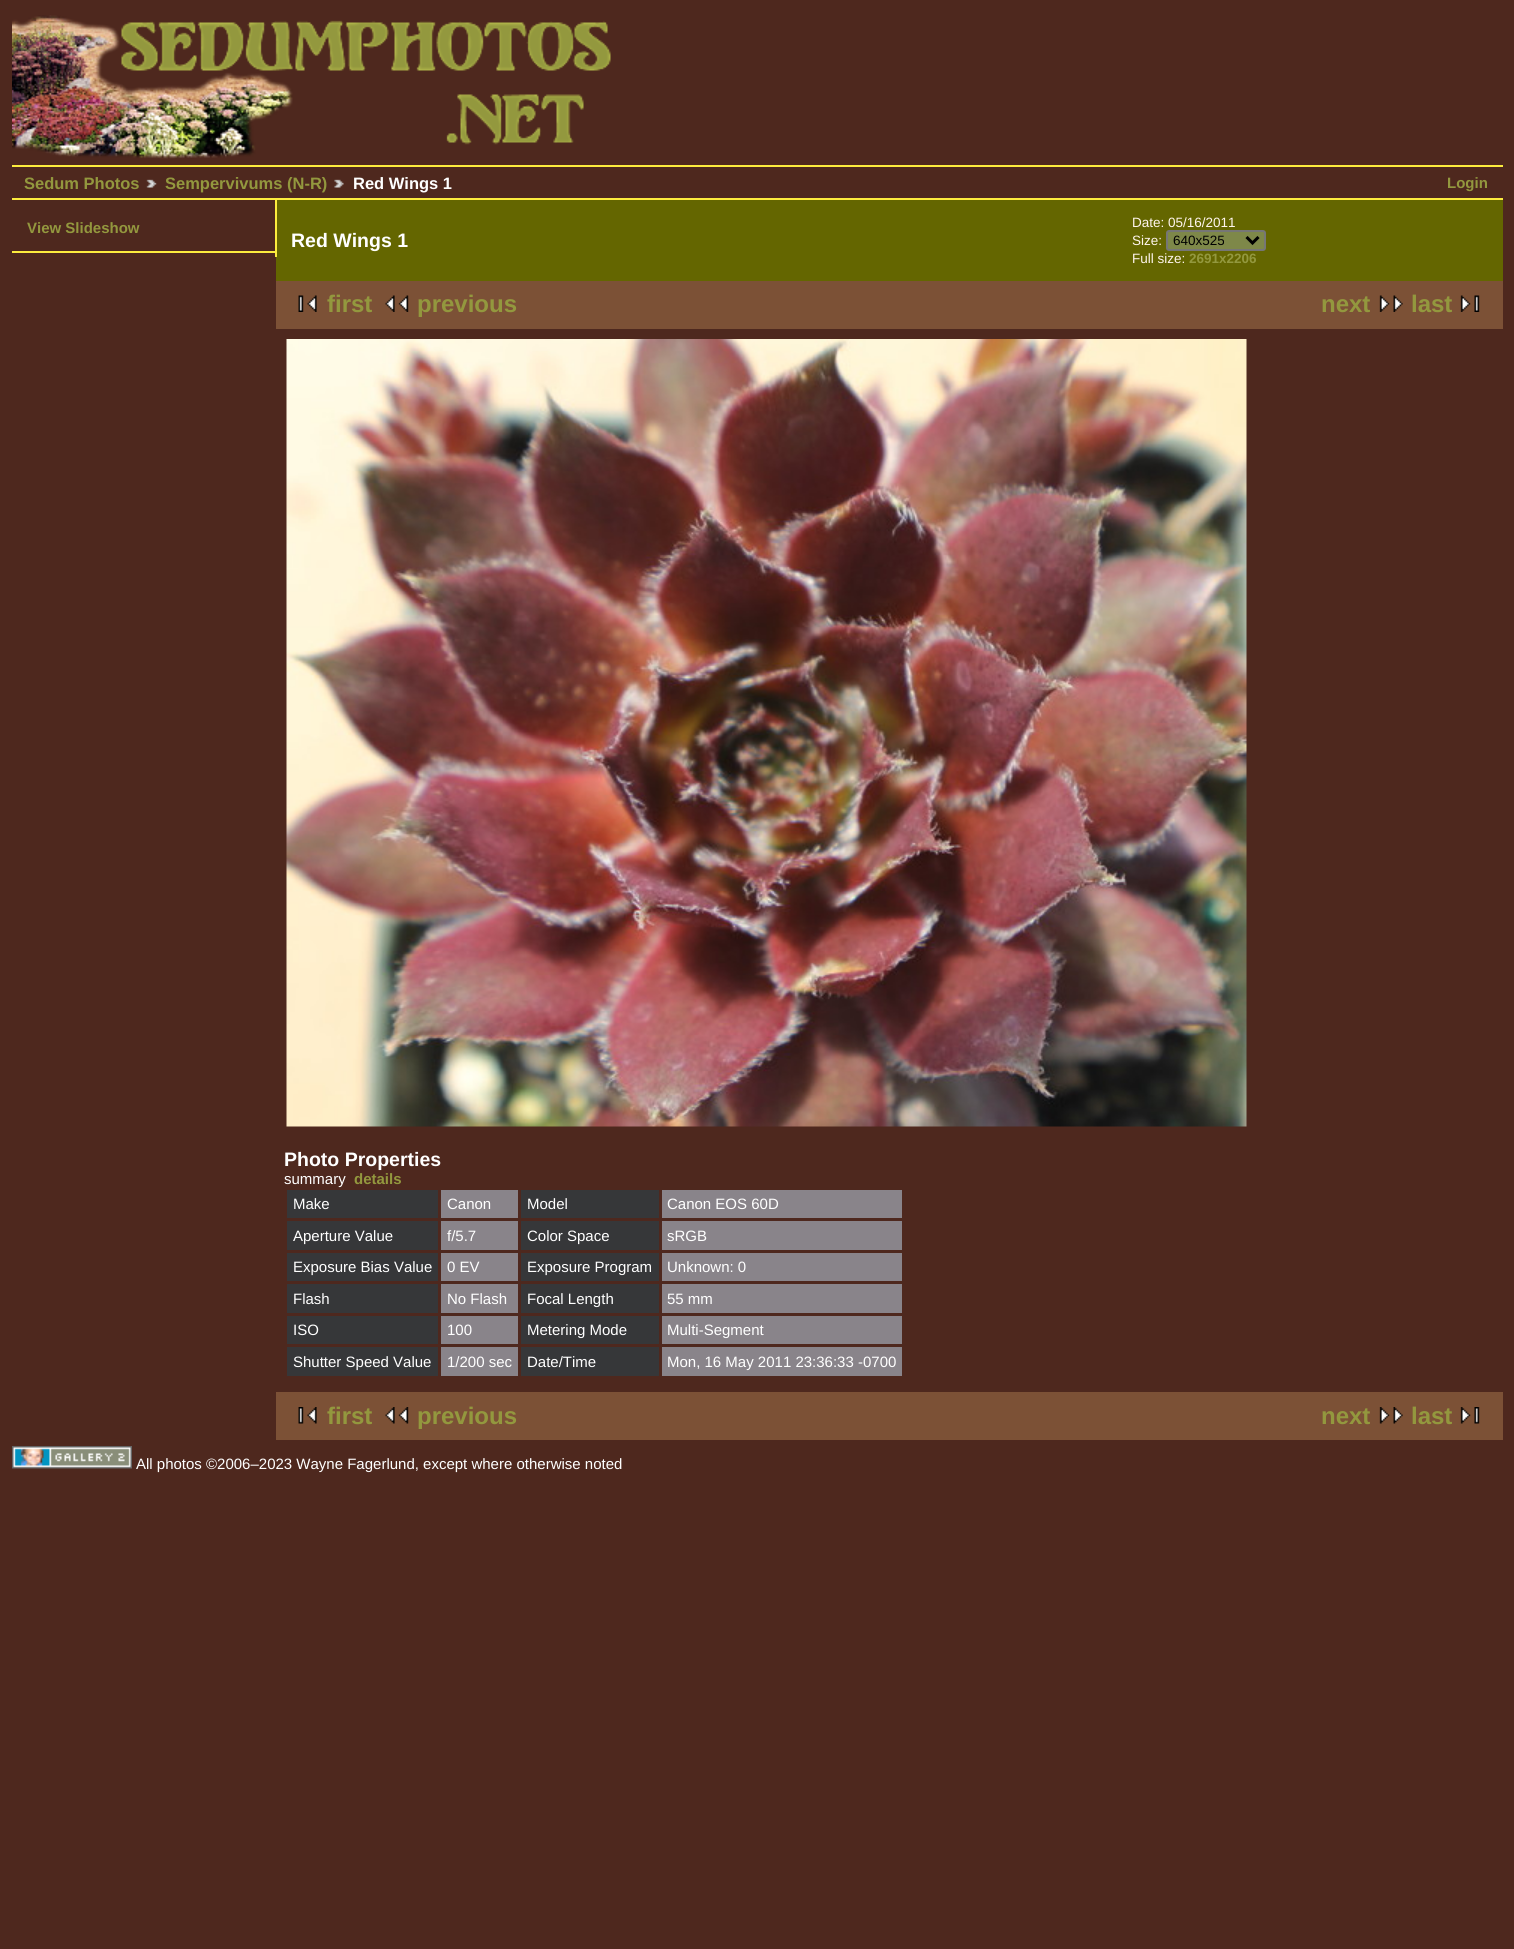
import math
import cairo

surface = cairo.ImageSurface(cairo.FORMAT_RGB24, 1514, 1949)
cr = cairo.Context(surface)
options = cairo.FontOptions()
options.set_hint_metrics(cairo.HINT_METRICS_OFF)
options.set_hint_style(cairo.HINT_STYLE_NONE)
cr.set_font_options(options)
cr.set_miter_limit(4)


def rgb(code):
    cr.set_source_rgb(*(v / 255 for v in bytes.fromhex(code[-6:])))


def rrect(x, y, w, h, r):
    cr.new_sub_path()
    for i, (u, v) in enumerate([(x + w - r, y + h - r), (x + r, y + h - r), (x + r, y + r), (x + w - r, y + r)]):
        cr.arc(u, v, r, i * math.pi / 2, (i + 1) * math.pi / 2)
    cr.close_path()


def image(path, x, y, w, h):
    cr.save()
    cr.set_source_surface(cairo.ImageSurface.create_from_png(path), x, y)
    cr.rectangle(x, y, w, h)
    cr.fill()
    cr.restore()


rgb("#4e281e")
cr.paint()
image("img/1.png", 12, 15, 599, 144)
rgb("#fcec3e")
cr.rectangle(12, 165, 1491, 2)
cr.fill()
cr.rectangle(12, 198, 1491, 2)
cr.fill()
image("img/2.png", 146, 179, 11, 9)
image("img/3.png", 334, 179, 10, 9)
for x, y, w, h, color in [
    (276, 200, 1227, 81, "#646600"),
    (275, 200, 2, 57, "#fcec3e"),
    (12, 251, 263, 2, "#fcec3e"),
]:
    rgb(color)
    cr.rectangle(x, y, w, h)
    cr.fill()
rgb("#7e8849")
rrect(1167, 231, 98, 19, 2)
cr.fill_preserve()
rgb("#767676")
cr.stroke()
cr.new_path()
cr.move_to(1246.5, 237)
cr.line_to(1252.5, 243)
cr.line_to(1258.5, 237)
rgb("#000000")
cr.set_line_width(3)
cr.stroke()
rgb("#7c5136")
cr.rectangle(276, 281, 1227, 48)
cr.fill()
image("img/4.png", 298, 295, 19, 17)
image("img/5.png", 385, 295, 24, 17)
image("img/6.png", 1379, 295, 24, 17)
image("img/7.png", 1460, 295, 20, 17)
image("img/8.png", 286, 339, 961, 788)
for x, y, w, h, color in [
    (287, 1190, 151, 28, "#363739"),
    (441, 1190, 77, 28, "#89848a"),
    (521, 1190, 138, 28, "#363739"),
    (662, 1190, 240, 28, "#89848a"),
    (287, 1221, 151, 29, "#363739"),
    (441, 1221, 77, 29, "#89848a"),
    (521, 1221, 138, 29, "#363739"),
    (662, 1221, 240, 29, "#89848a"),
    (287, 1253, 151, 28, "#363739"),
    (441, 1253, 77, 28, "#89848a"),
    (521, 1253, 138, 28, "#363739"),
    (662, 1253, 240, 28, "#89848a"),
    (287, 1284, 151, 29, "#363739"),
    (441, 1284, 77, 29, "#89848a"),
    (521, 1284, 138, 29, "#363739"),
    (662, 1284, 240, 29, "#89848a"),
    (287, 1316, 151, 28, "#363739"),
    (441, 1316, 77, 28, "#89848a"),
    (521, 1316, 138, 28, "#363739"),
    (662, 1316, 240, 28, "#89848a"),
    (287, 1347, 151, 29, "#363739"),
    (441, 1347, 77, 29, "#89848a"),
    (521, 1347, 138, 29, "#363739"),
    (662, 1347, 240, 29, "#89848a"),
    (276, 1392, 1227, 48, "#7c5136"),
]:
    rgb(color)
    cr.rectangle(x, y, w, h)
    cr.fill()
image("img/9.png", 298, 1407, 19, 17)
image("img/10.png", 385, 1407, 24, 17)
image("img/11.png", 1379, 1407, 24, 17)
image("img/12.png", 1460, 1407, 20, 17)
image("img/13.png", 12, 1446, 120, 23)
cr.select_font_face("Liberation Sans", cairo.FONT_SLANT_NORMAL, cairo.FONT_WEIGHT_BOLD)
cr.set_font_size(16.5)
rgb("#93983e")
cr.move_to(24, 189)
cr.show_text("Sedum Photos")
cr.move_to(165, 189)
cr.show_text("Sempervivums (N-R)")
rgb("#ffffff")
cr.move_to(353, 189)
cr.show_text("Red Wings 1")
cr.set_font_size(15)
rgb("#93983e")
cr.move_to(1447, 188)
cr.show_text("Login")
cr.move_to(27, 233)
cr.show_text("View Slideshow")
cr.set_font_size(19.5)
rgb("#ffffff")
cr.move_to(291, 247)
cr.show_text("Red Wings 1")
cr.select_font_face("Liberation Sans")
cr.set_font_size(13.5)
rgb("#fff5ee")
cr.move_to(1132, 227)
cr.show_text("Date: 05/16/2011")
cr.move_to(1132, 245)
cr.show_text("Size:")
rgb("#000000")
cr.move_to(1173, 245)
cr.show_text("640x525")
rgb("#fff5ee")
cr.move_to(1132, 263)
cr.show_text("Full size:")
cr.select_font_face("Liberation Sans", cairo.FONT_SLANT_NORMAL, cairo.FONT_WEIGHT_BOLD)
rgb("#93983e")
cr.move_to(1189, 263)
cr.show_text("2691x2206")
cr.set_font_size(24)
for x, y, s in [
    (327, 312, "first"),
    (417, 312, "previous"),
    (1321, 312, "next"),
    (1411, 312, "last"),
]:
    cr.move_to(x, y)
    cr.show_text(s)
cr.set_font_size(19.5)
rgb("#ffffff")
cr.move_to(284, 1166)
cr.show_text("Photo Properties")
cr.select_font_face("Liberation Sans")
cr.set_font_size(15)
cr.move_to(284, 1184)
cr.show_text("summary")
cr.select_font_face("Liberation Sans", cairo.FONT_SLANT_NORMAL, cairo.FONT_WEIGHT_BOLD)
rgb("#93983e")
cr.move_to(354, 1184)
cr.show_text("details")
cr.select_font_face("Liberation Sans")
rgb("#ffffff")
for x, y, s in [
    (293, 1209, "Make"),
    (447, 1209, "Canon"),
    (527, 1209, "Model"),
    (667, 1209, "Canon EOS 60D"),
    (293, 1241, "Aperture Value"),
    (447, 1241, "f/5.7"),
    (527, 1241, "Color Space"),
    (667, 1241, "sRGB"),
    (293, 1272, "Exposure Bias Value"),
    (447, 1272, "0 EV"),
    (527, 1272, "Exposure Program"),
    (667, 1272, "Unknown: 0"),
    (293, 1304, "Flash"),
    (447, 1304, "No Flash"),
    (527, 1304, "Focal Length"),
    (667, 1304, "55 mm"),
    (293, 1335, "ISO"),
    (447, 1335, "100"),
    (527, 1335, "Metering Mode"),
    (667, 1335, "Multi-Segment"),
    (293, 1367, "Shutter Speed Value"),
    (447, 1367, "1/200 sec"),
    (527, 1367, "Date/Time"),
    (667, 1367, "Mon, 16 May 2011 23:36:33 -0700"),
]:
    cr.move_to(x, y)
    cr.show_text(s)
cr.select_font_face("Liberation Sans", cairo.FONT_SLANT_NORMAL, cairo.FONT_WEIGHT_BOLD)
cr.set_font_size(24)
rgb("#93983e")
for x, y, s in [
    (327, 1424, "first"),
    (417, 1424, "previous"),
    (1321, 1424, "next"),
    (1411, 1424, "last"),
]:
    cr.move_to(x, y)
    cr.show_text(s)
cr.select_font_face("Liberation Sans")
cr.set_font_size(15)
rgb("#ffffff")
cr.move_to(136, 1469)
cr.show_text("All photos ©2006–2023 Wayne Fagerlund, except where otherwise noted")
surface.write_to_png("page.png")
